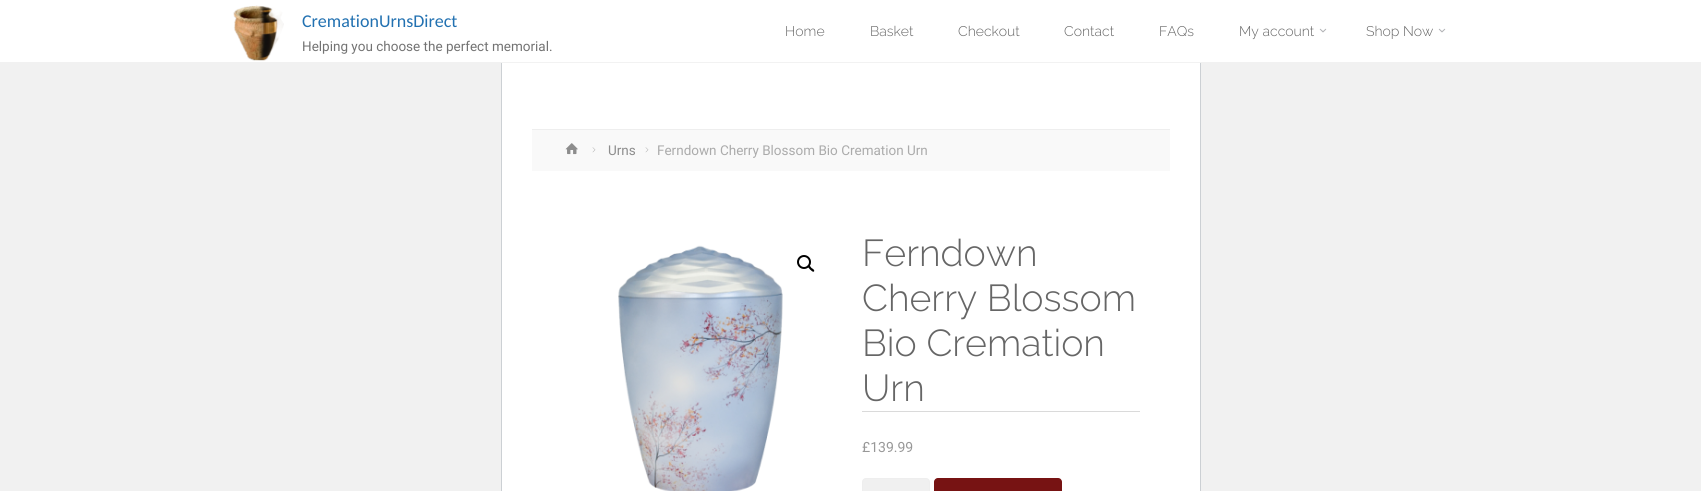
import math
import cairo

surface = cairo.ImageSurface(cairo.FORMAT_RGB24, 1701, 491)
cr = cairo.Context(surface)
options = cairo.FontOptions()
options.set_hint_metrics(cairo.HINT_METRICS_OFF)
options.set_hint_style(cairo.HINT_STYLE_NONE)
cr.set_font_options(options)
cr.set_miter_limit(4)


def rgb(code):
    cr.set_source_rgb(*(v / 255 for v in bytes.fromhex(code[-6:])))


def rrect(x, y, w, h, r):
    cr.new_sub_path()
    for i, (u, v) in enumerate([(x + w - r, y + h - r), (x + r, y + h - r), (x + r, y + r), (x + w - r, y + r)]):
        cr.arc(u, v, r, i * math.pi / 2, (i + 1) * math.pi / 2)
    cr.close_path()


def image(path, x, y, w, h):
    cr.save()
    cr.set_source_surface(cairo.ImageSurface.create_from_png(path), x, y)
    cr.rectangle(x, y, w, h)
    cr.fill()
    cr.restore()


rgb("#f1f1f1")
cr.paint()
rgb("#ffffff")
cr.rectangle(502, 63, 698, 428)
cr.fill()
cr.rectangle(501.5, 50.5, 699, 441)
rgb("#ccd0d4")
cr.set_line_width(1)
cr.stroke()
for x, y, w, h, color in [
    (532, 129, 638, 1, "#eeeeee"),
    (0, 0, 1701, 62, "#ffffff"),
    (501, 62, 700, 1, "#f2f2f2"),
]:
    rgb(color)
    cr.rectangle(x, y, w, h)
    cr.fill()
image("img/1.png", 233, 5, 51, 56)
image("img/2.png", 1319, 28, 8, 5)
image("img/2.png", 1438, 28, 8, 5)
rgb("#f9f9f9")
cr.rectangle(532, 130, 638, 41)
cr.fill()
image("img/3.png", 565, 143, 13, 12)
image("img/4.png", 592, 147, 4, 6)
image("img/4.png", 645, 147, 4, 6)
image("img/5.png", 618, 245, 165, 246)
cr.arc(804, 262, 6, 0, 2 * math.pi)
rgb("#000000")
cr.set_line_width(2)
cr.stroke()
cr.new_path()
cr.move_to(808, 265.5)
cr.curve_to(809.5, 264.5, 811, 267.5, 811.5, 268)
cr.curve_to(812.5, 268.5, 815, 270, 814, 271.5)
cr.curve_to(812.5, 272.5, 811, 270, 810, 269.5)
cr.curve_to(809.5, 268.5, 807, 267, 808, 265.5)
cr.close_path()
cr.fill()
rgb("#dadada")
cr.rectangle(862, 411, 278, 1)
cr.fill()
rgb("#f0f0f0")
rrect(862.5, 478.5, 67, 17, 3.5)
cr.fill_preserve()
rgb("#eeeeee")
cr.set_line_width(1)
cr.stroke()
rgb("#771313")
rrect(934, 478, 128, 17, 4)
cr.fill()
cr.select_font_face("Carlito")
cr.set_font_size(18)
rgb("#2271b1")
cr.move_to(302, 27)
cr.show_text("CremationUrnsDirect")
cr.select_font_face("Roboto")
cr.set_font_size(13.5)
rgb("#737373")
cr.move_to(302, 51)
cr.show_text("Helping you choose the perfect memorial.")
cr.select_font_face("Raleway Light")
cr.set_font_size(14)
rgb("#666666")
for x, y, s in [
    (785, 36, "Home"),
    (870, 36, "Basket"),
    (958, 36, "Checkout"),
    (1064, 36, "Contact"),
    (1159, 36, "FAQs"),
    (1239, 36, "My account"),
    (1366, 36, "Shop Now"),
]:
    cr.move_to(x, y)
    cr.show_text(s)
cr.select_font_face("Roboto")
cr.set_font_size(13.5)
rgb("#8d8d8d")
cr.move_to(608, 155)
cr.show_text("Urns")
rgb("#ababab")
cr.move_to(657, 155)
cr.show_text("Ferndown Cherry Blossom Bio Cremation Urn")
cr.select_font_face("Raleway Light")
cr.set_font_size(37.5)
rgb("#666666")
for x, y, s in [
    (862, 266, "Ferndown"),
    (862, 311, "Cherry Blossom"),
    (862, 356, "Bio Cremation"),
    (862, 401, "Urn"),
]:
    cr.move_to(x, y)
    cr.show_text(s)
cr.select_font_face("Roboto")
cr.set_font_size(14)
rgb("#989898")
cr.move_to(862, 452)
cr.show_text("£139.99")
surface.write_to_png("page.png")
